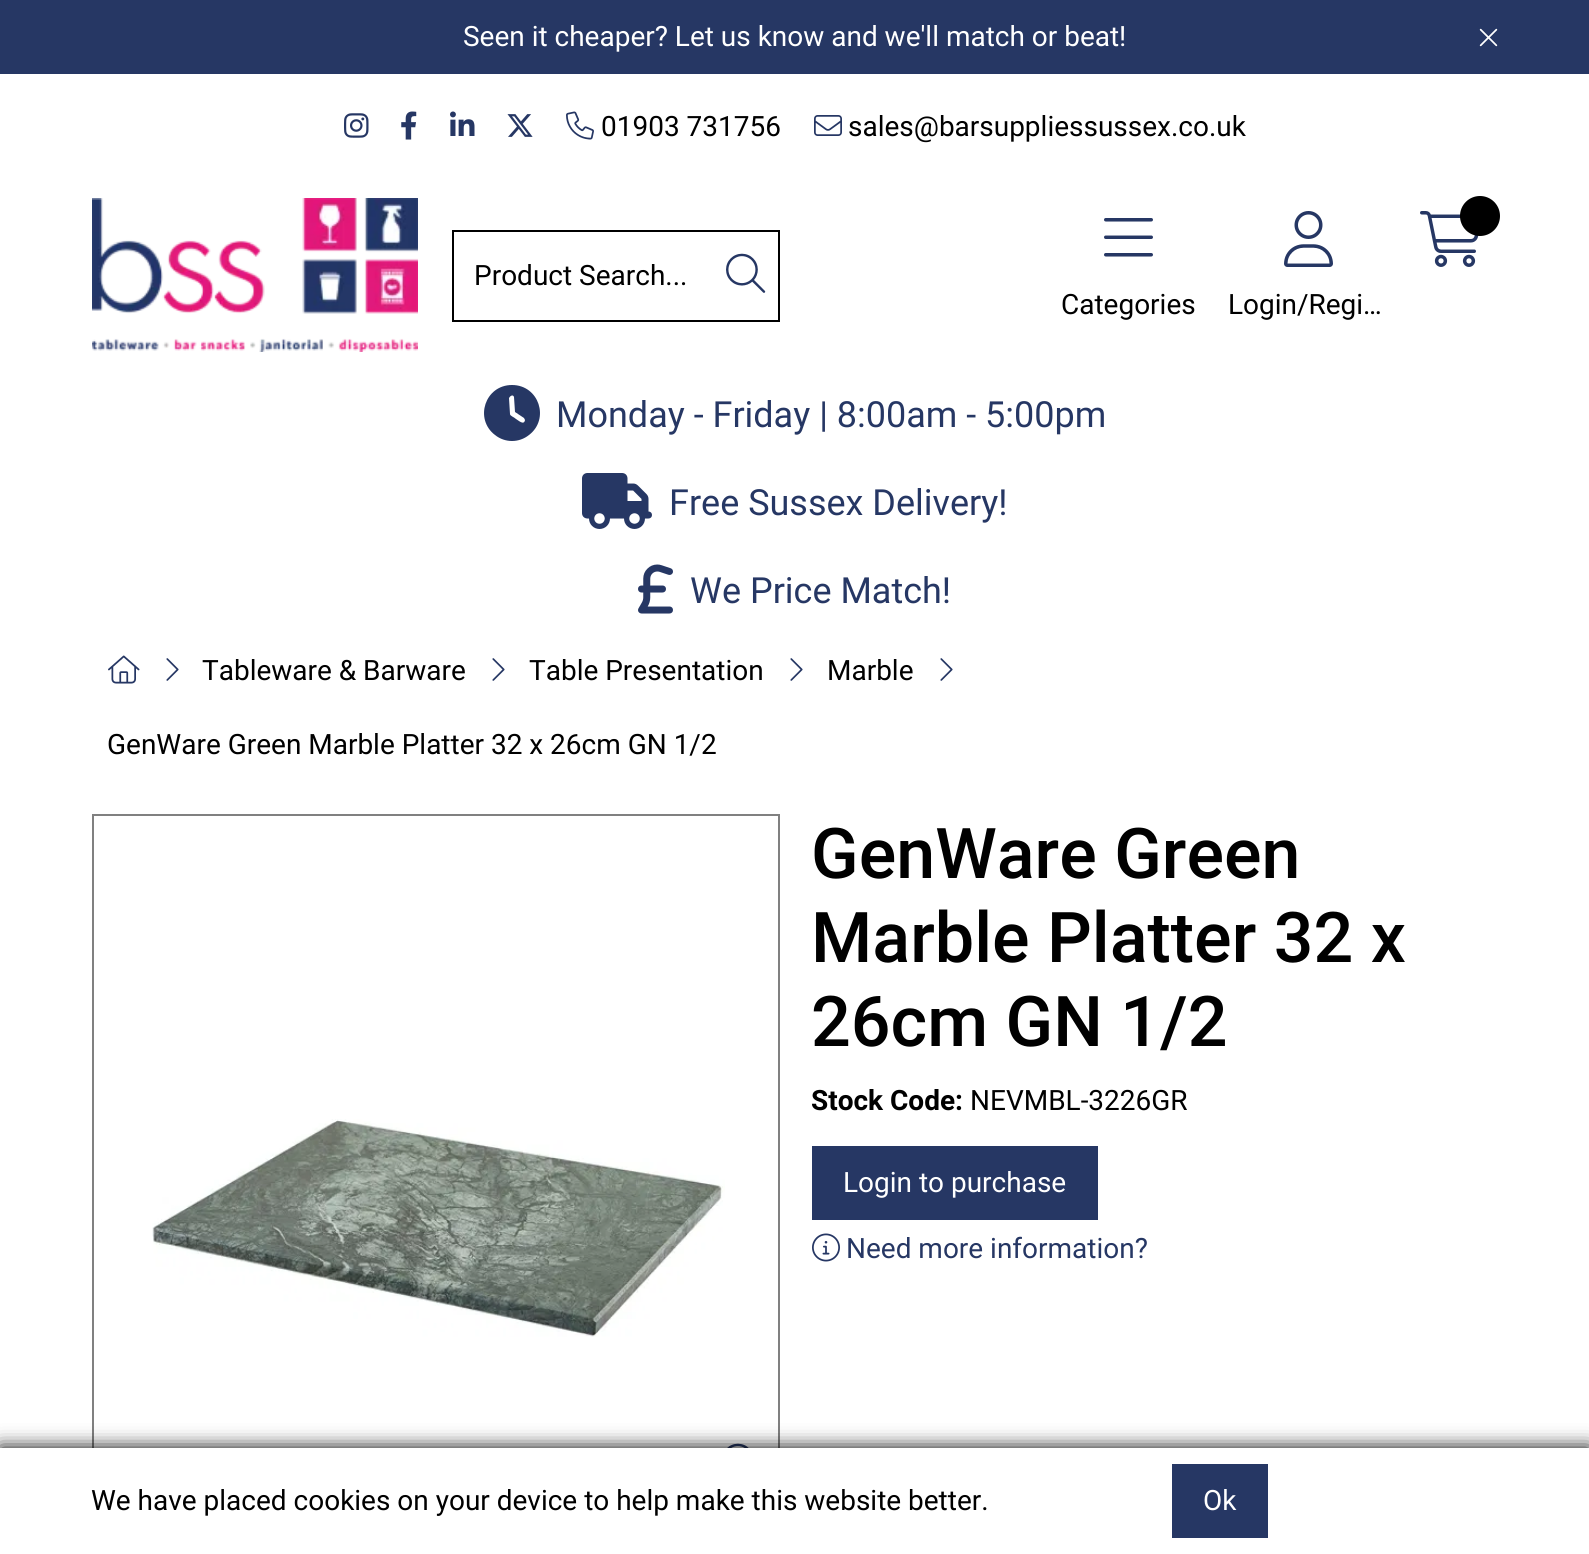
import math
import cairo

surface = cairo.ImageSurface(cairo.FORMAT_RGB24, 1589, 1554)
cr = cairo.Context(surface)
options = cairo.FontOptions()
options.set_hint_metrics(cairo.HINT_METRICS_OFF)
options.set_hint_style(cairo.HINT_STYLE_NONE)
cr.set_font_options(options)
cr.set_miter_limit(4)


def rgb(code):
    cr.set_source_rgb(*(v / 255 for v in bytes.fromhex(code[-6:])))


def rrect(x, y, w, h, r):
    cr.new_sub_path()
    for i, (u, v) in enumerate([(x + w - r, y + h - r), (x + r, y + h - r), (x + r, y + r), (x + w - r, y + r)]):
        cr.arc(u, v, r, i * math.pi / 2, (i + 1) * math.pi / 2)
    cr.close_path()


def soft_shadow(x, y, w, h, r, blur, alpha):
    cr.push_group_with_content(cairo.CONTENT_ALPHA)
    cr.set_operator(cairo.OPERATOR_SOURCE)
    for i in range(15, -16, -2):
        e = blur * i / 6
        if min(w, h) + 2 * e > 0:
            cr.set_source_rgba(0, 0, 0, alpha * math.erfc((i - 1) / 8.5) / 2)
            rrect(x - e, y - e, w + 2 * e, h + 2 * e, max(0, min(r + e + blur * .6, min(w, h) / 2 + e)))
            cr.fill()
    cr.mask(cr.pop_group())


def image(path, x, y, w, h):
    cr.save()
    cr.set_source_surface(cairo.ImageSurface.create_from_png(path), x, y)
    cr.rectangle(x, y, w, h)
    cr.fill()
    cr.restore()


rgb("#ffffff")
cr.paint()
rgb("#263764")
cr.rectangle(0, 0, 1589, 74)
cr.fill()
image("img/1.png", 1479, 28, 19, 19)
image("img/2.png", 344, 113, 25, 25)
image("img/3.png", 401, 111, 16, 29)
image("img/4.png", 450, 111, 25, 25)
image("img/5.png", 507, 114, 26, 23)
image("img/6.png", 566, 111, 28, 29)
image("img/7.png", 814, 115, 28, 21)
image("img/8.png", 92, 198, 326, 154)
cr.rectangle(453, 231, 326, 90)
rgb("#000000")
cr.stroke()
image("img/9.png", 726, 253, 40, 40)
image("img/10.png", 1420, 211, 59, 56)
cr.arc(1480, 216, 20, 0, 2 * math.pi)
cr.fill()
image("img/11.png", 1104, 218, 49, 39)
image("img/12.png", 1284, 211, 49, 56)
rgb("#263764")
cr.new_path()
cr.move_to(512, 385)
cr.curve_to(539, 385, 550, 419, 529, 435)
cr.curve_to(524, 439, 518, 441, 512, 441)
cr.curve_to(506, 441, 500, 439, 495, 435)
cr.curve_to(474, 419, 485, 385, 512, 385)
cr.close_path()
cr.move_to(509, 398)
cr.line_to(510, 414)
cr.curve_to(510, 416, 514, 417, 516, 419)
cr.curve_to(518, 420, 524, 426, 525, 420)
cr.line_to(524, 418)
cr.line_to(515, 412)
cr.line_to(514, 397)
cr.curve_to(513, 394, 510, 396, 509, 398)
cr.close_path()
cr.fill()
image("img/13.png", 582, 473, 70, 56)
image("img/14.png", 638, 564, 35, 50)
image("img/15.png", 108, 655, 32, 29)
image("img/16.png", 166, 658, 13, 23)
image("img/16.png", 492, 658, 13, 23)
image("img/16.png", 790, 658, 13, 23)
image("img/16.png", 940, 658, 13, 23)
cr.rectangle(93, 815, 686, 686)
rgb("#808080")
cr.stroke()
image("img/17.png", 152, 1119, 573, 218)
image("img/18.png", 727, 1443, 22, 5)
rgb("#263764")
cr.rectangle(812, 1146, 286, 74)
cr.fill()
image("img/19.png", 812, 1233, 28, 29)
rgb("#000000")
soft_shadow(0, 1448, 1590, 106, 0, 10, 1)
rgb("#ffffff")
cr.rectangle(0, 1448, 1589, 106)
cr.fill()
rgb("#263764")
cr.rectangle(1172, 1464, 96, 74)
cr.fill()
cr.select_font_face("Roboto")
cr.set_font_size(28)
rgb("#ffffff")
cr.move_to(463, 46)
cr.show_text("Seen it cheaper? Let us know and we'll match or beat!")
rgb("#000000")
for x, y, s in [
    (601, 136, "01903 731756"),
    (848, 136, "sales@barsuppliessussex.co.uk"),
    (474, 285, "Product Search..."),
    (1061, 314, "Categories"),
    (1228, 314, "Login/Regi…"),
]:
    cr.move_to(x, y)
    cr.show_text(s)
cr.set_font_size(36)
rgb("#263764")
for x, y, s in [
    (556, 427, "Monday - Friday | 8:00am - 5:00pm"),
    (669, 515, "Free Sussex Delivery!"),
    (690, 603, "We Price Match!"),
]:
    cr.move_to(x, y)
    cr.show_text(s)
cr.set_font_size(28)
rgb("#000000")
for x, y, s in [
    (202, 680, "Tableware & Barware"),
    (529, 680, "Table Presentation"),
    (827, 680, "Marble"),
    (107, 754, "GenWare Green Marble Platter 32 x 26cm GN 1/2"),
]:
    cr.move_to(x, y)
    cr.show_text(s)
cr.select_font_face("Roboto Medium")
cr.set_font_size(70)
for x, y, s in [
    (811, 878, "GenWare Green"),
    (811, 962, "Marble Platter 32 x"),
    (811, 1046, "26cm GN 1/2"),
]:
    cr.move_to(x, y)
    cr.show_text(s)
cr.select_font_face("Roboto", cairo.FONT_SLANT_NORMAL, cairo.FONT_WEIGHT_BOLD)
cr.set_font_size(28)
cr.move_to(811, 1110)
cr.show_text("Stock Code:")
cr.select_font_face("Roboto")
cr.move_to(970, 1110)
cr.show_text("NEVMBL-3226GR")
rgb("#ffffff")
cr.move_to(843, 1192)
cr.show_text("Login to purchase")
rgb("#263764")
cr.move_to(846, 1258)
cr.show_text("Need more information?")
rgb("#000000")
cr.move_to(91, 1510)
cr.show_text("We have placed cookies on your device to help make this website better.")
rgb("#ffffff")
cr.move_to(1203, 1510)
cr.show_text("Ok")
surface.write_to_png("page.png")
